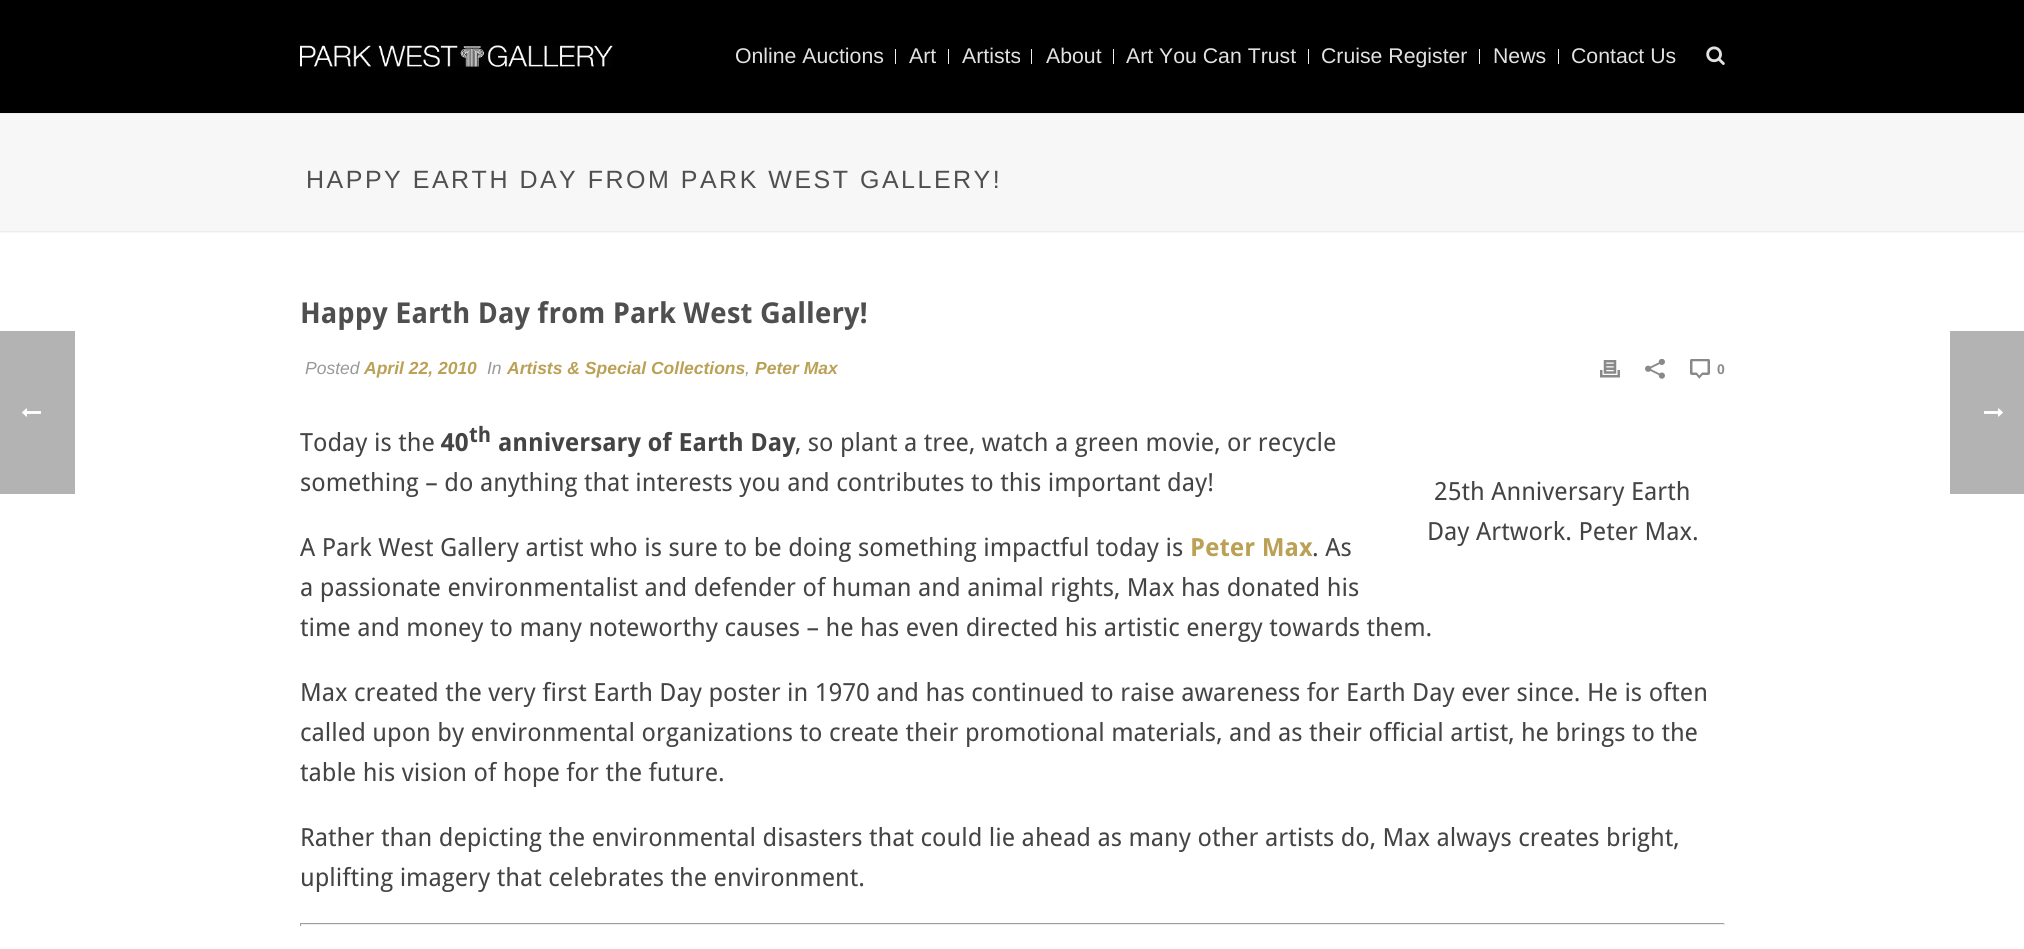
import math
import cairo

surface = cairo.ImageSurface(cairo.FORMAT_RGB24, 2024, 949)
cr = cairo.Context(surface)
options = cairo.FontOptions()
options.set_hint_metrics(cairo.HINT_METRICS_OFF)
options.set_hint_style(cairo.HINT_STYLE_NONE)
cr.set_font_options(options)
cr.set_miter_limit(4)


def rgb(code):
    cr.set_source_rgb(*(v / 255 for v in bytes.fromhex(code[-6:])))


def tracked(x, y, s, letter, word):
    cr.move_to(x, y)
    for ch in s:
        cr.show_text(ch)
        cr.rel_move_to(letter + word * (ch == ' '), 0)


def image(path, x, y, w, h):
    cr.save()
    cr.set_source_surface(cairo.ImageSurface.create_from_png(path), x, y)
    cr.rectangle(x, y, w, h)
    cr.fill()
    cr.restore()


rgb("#ffffff")
cr.paint()
rgb("#b3b3b3")
cr.rectangle(0, 331, 75, 163)
cr.fill()
image("img/1.png", 22, 408, 19, 9)
for x, y, w, h, color in [
    (0, 114, 2024, 119, "#f7f7f7"),
    (0, 231, 2024, 1, "#ededed"),
    (0, 113, 2024, 1, "#ededed"),
    (0, 0, 2024, 113, "#000000"),
]:
    rgb(color)
    cr.rectangle(x, y, w, h)
    cr.fill()
image("img/2.png", 300, 45, 313, 22)
for x, y, w, h, color in [
    (895, 49, 1, 15, "#ededed"),
    (948, 49, 1, 15, "#ededed"),
    (1031, 49, 1, 15, "#ededed"),
    (1113, 49, 1, 15, "#ededed"),
    (1308, 49, 1, 15, "#ededed"),
    (1479, 49, 1, 15, "#ededed"),
    (1558, 49, 1, 15, "#ededed"),
]:
    rgb(color)
    cr.rectangle(x, y, w, h)
    cr.fill()
image("img/3.png", 1706, 46, 19, 19)
image("img/4.png", 1600, 360, 20, 18)
image("img/5.png", 1645, 359, 20, 20)
image("img/6.png", 1690, 359, 20, 20)
for x, y, w, h, color in [
    (300, 923, 1425, 1, "#9f9f9f"),
    (1724, 923, 1, 3, "#eeeeee"),
    (300, 924, 1425, 1, "#eeeeee"),
    (300, 923, 1, 3, "#9f9f9f"),
    (1950, 331, 74, 163, "#b3b3b3"),
]:
    rgb(color)
    cr.rectangle(x, y, w, h)
    cr.fill()
image("img/7.png", 1984, 408, 19, 9)
cr.select_font_face("Liberation Sans")
cr.set_font_size(21.25)
rgb("#e2e2e2")
for x, y, s in [
    (735, 63, "Online Auctions"),
    (909, 63, "Art"),
    (962, 63, "Artists"),
    (1046, 63, "About"),
    (1126, 63, "Art You Can Trust"),
    (1321, 63, "Cruise Register"),
    (1493, 63, "News"),
    (1571, 63, "Contact Us"),
]:
    cr.move_to(x, y)
    cr.show_text(s)
cr.set_font_size(25)
rgb("#4f4f4f")
tracked(306, 188, "HAPPY EARTH DAY FROM PARK WEST GALLERY!", 2.5, 0)
cr.select_font_face("Droid Sans", cairo.FONT_SLANT_NORMAL, cairo.FONT_WEIGHT_BOLD)
cr.set_font_size(28.75)
cr.move_to(300, 323)
cr.show_text("Happy Earth Day from Park West Gallery!")
cr.select_font_face("Liberation Sans", cairo.FONT_SLANT_ITALIC)
cr.set_font_size(17.5)
rgb("#999999")
cr.move_to(305, 374)
cr.show_text("Posted")
cr.select_font_face("Liberation Sans", cairo.FONT_SLANT_ITALIC, cairo.FONT_WEIGHT_BOLD)
rgb("#bba156")
cr.move_to(364, 374)
cr.show_text("April 22, 2010")
cr.select_font_face("Liberation Sans", cairo.FONT_SLANT_ITALIC)
rgb("#999999")
cr.move_to(487, 374)
cr.show_text("In")
cr.select_font_face("Liberation Sans", cairo.FONT_SLANT_ITALIC, cairo.FONT_WEIGHT_BOLD)
rgb("#bba156")
cr.move_to(507, 374)
cr.show_text("Artists & Special Collections")
cr.select_font_face("Liberation Sans", cairo.FONT_SLANT_ITALIC)
rgb("#999999")
cr.move_to(745, 374)
cr.show_text(",")
cr.select_font_face("Liberation Sans", cairo.FONT_SLANT_ITALIC, cairo.FONT_WEIGHT_BOLD)
rgb("#bba156")
cr.move_to(755, 374)
cr.show_text("Peter Max")
cr.select_font_face("Liberation Sans", cairo.FONT_SLANT_NORMAL, cairo.FONT_WEIGHT_BOLD)
cr.set_font_size(14)
rgb("#898989")
cr.move_to(1717, 374)
cr.show_text("0")
cr.select_font_face("Droid Sans")
cr.set_font_size(25)
rgb("#444444")
cr.move_to(300, 451)
cr.show_text("Today is the")
cr.select_font_face("Droid Sans", cairo.FONT_SLANT_NORMAL, cairo.FONT_WEIGHT_BOLD)
cr.move_to(441, 451)
cr.show_text("40")
cr.set_font_size(21.25)
cr.move_to(469, 442)
cr.show_text("th")
cr.set_font_size(25)
cr.move_to(498, 451)
cr.show_text("anniversary of Earth Day")
cr.select_font_face("Droid Sans")
for x, y, s in [
    (795, 451, ", so plant a tree, watch a green movie, or recycle"),
    (300, 491, "something – do anything that interests you and contributes to this important day!"),
    (1434, 500, "25th Anniversary Earth"),
    (1427, 540, "Day Artwork. Peter Max."),
    (300, 556, "A Park West Gallery artist who is sure to be doing something impactful today is"),
]:
    cr.move_to(x, y)
    cr.show_text(s)
cr.select_font_face("Droid Sans", cairo.FONT_SLANT_NORMAL, cairo.FONT_WEIGHT_BOLD)
rgb("#bba156")
cr.move_to(1190, 556)
cr.show_text("Peter Max")
cr.select_font_face("Droid Sans")
rgb("#444444")
for x, y, s in [
    (1312, 556, ". As"),
    (300, 596, "a passionate environmentalist and defender of human and animal rights, Max has donated his"),
    (300, 636, "time and money to many noteworthy causes – he has even directed his artistic energy towards them."),
    (300, 701, "Max created the very first Earth Day poster in 1970 and has continued to raise awareness for Earth Day ever since. He is often"),
    (300, 741, "called upon by environmental organizations to create their promotional materials, and as their official artist, he brings to the"),
    (300, 781, "table his vision of hope for the future."),
    (300, 846, "Rather than depicting the environmental disasters that could lie ahead as many other artists do, Max always creates bright,"),
    (300, 886, "uplifting imagery that celebrates the environment."),
]:
    cr.move_to(x, y)
    cr.show_text(s)
surface.write_to_png("page.png")
